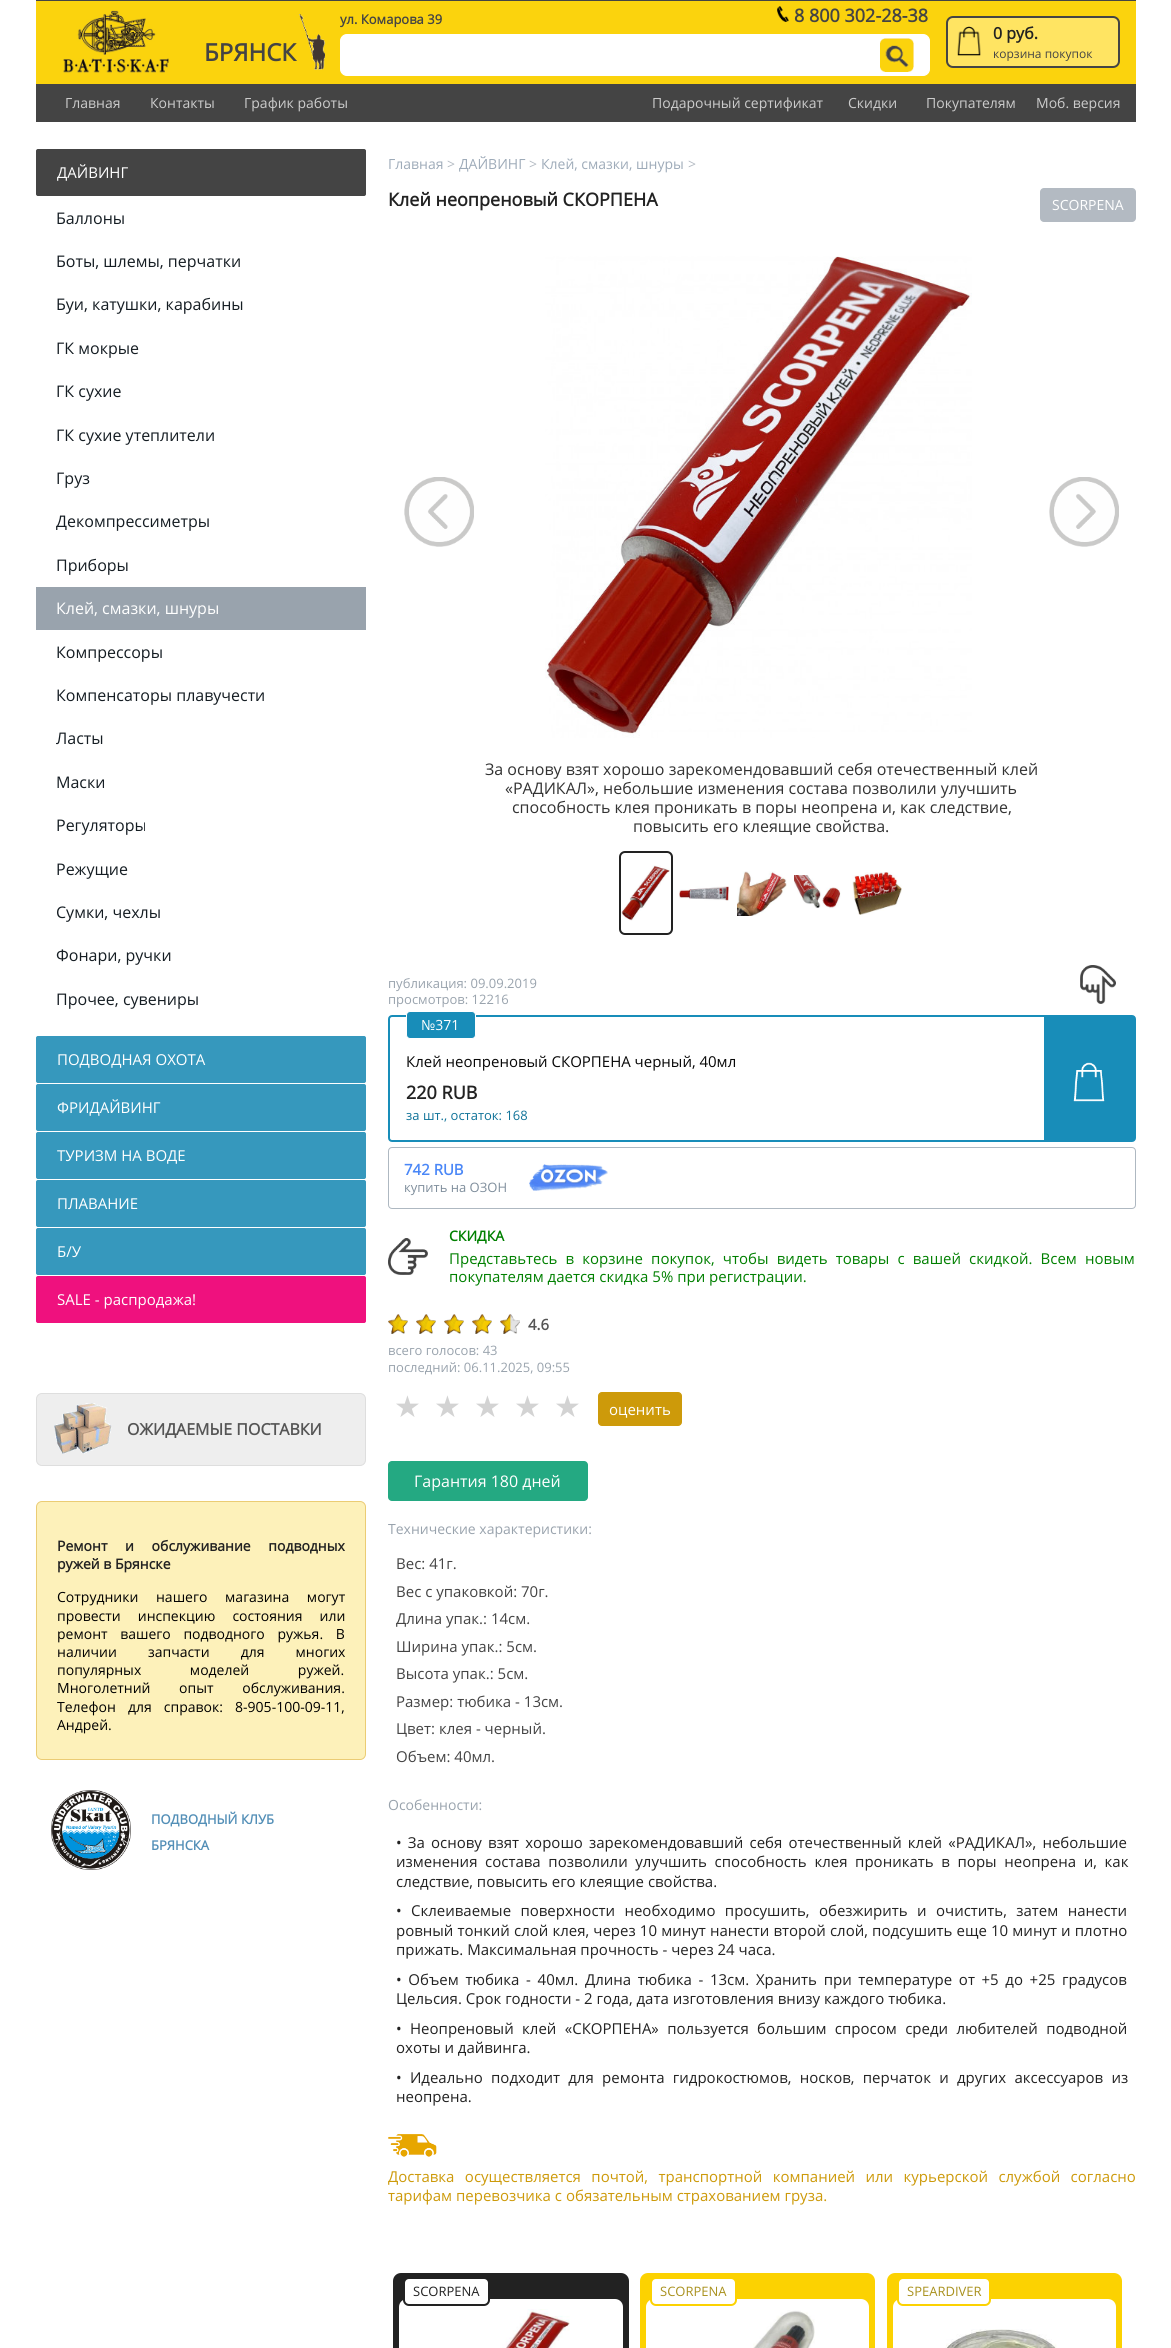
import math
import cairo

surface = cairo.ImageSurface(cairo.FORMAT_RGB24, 1171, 2348)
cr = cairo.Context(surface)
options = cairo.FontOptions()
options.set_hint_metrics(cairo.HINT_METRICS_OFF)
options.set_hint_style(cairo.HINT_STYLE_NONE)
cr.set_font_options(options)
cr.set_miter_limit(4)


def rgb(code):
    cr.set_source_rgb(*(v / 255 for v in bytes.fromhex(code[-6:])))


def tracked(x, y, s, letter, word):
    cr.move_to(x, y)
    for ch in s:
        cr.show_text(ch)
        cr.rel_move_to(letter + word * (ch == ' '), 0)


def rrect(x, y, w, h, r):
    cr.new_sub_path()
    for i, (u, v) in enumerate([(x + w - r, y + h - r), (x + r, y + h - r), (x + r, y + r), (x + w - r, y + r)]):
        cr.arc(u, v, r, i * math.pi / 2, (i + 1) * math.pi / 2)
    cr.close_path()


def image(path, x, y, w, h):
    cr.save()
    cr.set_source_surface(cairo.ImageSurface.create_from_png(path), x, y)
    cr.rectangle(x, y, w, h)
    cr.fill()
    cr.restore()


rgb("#ffffff")
cr.paint()
rgb("#fbd30d")
cr.rectangle(36, 1, 1100, 83)
cr.fill()
rgb("#444444")
cr.rectangle(36, 0, 1100, 1)
cr.fill()
image("img/1.png", 63, 10, 106, 63)
image("img/2.png", 299, 14, 26, 56)
image("img/3.png", 777, 6, 12, 16)
rgb("#ffffff")
rrect(340.5, 34.5, 589, 41, 6.5)
cr.fill_preserve()
cr.set_line_width(1)
cr.stroke()
image("img/4.png", 880, 38, 34, 34)
rgb("#ffe462")
rrect(947, 17, 172, 50, 6)
cr.fill_preserve()
rgb("#444444")
cr.set_line_width(2)
cr.stroke()
image("img/5.png", 957, 26, 24, 30)
cr.rectangle(36, 84, 1100, 38)
cr.fill()
rrect(36.5, 149.5, 329, 46, 1.5)
cr.fill_preserve()
cr.set_line_width(1)
cr.stroke()
rgb("#99a3ad")
cr.rectangle(36, 587, 330, 43)
cr.fill()
rgb("#3698bd")
rrect(36.5, 1036.5, 329, 46, 1.5)
cr.fill_preserve()
cr.stroke()
rrect(36.5, 1084.5, 329, 46, 1.5)
cr.fill_preserve()
cr.stroke()
rrect(36.5, 1132.5, 329, 46, 1.5)
cr.fill_preserve()
cr.stroke()
rrect(36.5, 1180.5, 329, 46, 1.5)
cr.fill_preserve()
cr.stroke()
rrect(36.5, 1228.5, 329, 46, 1.5)
cr.fill_preserve()
cr.stroke()
rgb("#ef117e")
rrect(36.5, 1276.5, 329, 46, 1.5)
cr.fill_preserve()
cr.stroke()
rgb("#eeeeee")
rrect(36.5, 1393.5, 329, 72, 5.5)
cr.fill_preserve()
rgb("#dedede")
cr.stroke()
image("img/6.png", 54, 1403, 58, 51)
rgb("#fdf1ba")
rrect(36.5, 1501.5, 329, 258, 5.5)
cr.fill_preserve()
rgb("#ebcc74")
cr.stroke()
image("img/7.png", 51, 1790, 80, 80)
rgb("#b3bac2")
rrect(1040, 188, 96, 34, 4)
cr.fill()
image("img/8.png", 404, 477, 70, 70)
image("img/9.png", 545, 256, 427, 482)
image("img/10.png", 1049, 477, 70, 70)
rrect(620, 852, 52, 82, 5)
rgb("#222222")
cr.set_line_width(2)
cr.stroke()
image("img/11.png", 621, 865, 49, 56)
image("img/12.png", 679, 886, 50, 15)
image("img/13.png", 737, 871, 50, 45)
image("img/14.png", 794, 875, 47, 34)
image("img/15.png", 852, 872, 50, 43)
image("img/16.png", 1080, 965, 36, 39)
rrect(389, 1016, 746, 125, 3)
rgb("#188db9")
cr.stroke()
rrect(406.5, 1011.5, 69, 27, 3.5)
cr.fill_preserve()
rgb("#ffffff")
cr.set_line_width(1)
cr.stroke()
rgb("#188db9")
cr.rectangle(1044, 1017, 90, 123)
cr.fill()
image("img/17.png", 1073, 1062, 32, 40)
rrect(388.5, 1147.5, 747, 61, 3.5)
rgb("#aeb8c1")
cr.stroke()
image("img/18.png", 529, 1164, 79, 27)
image("img/19.png", 388, 1238, 40, 37)
image("img/20.png", 388, 1314, 20, 20)
image("img/20.png", 416, 1314, 20, 20)
image("img/20.png", 444, 1314, 20, 20)
image("img/20.png", 472, 1314, 20, 20)
image("img/21.png", 500, 1314, 20, 20)
rgb("#cd9a0a")
rrect(598.5, 1392.5, 83, 33, 3.5)
cr.fill_preserve()
cr.stroke()
rgb("#24a982")
rrect(388, 1461, 200, 40, 4)
cr.fill()
image("img/22.png", 388, 2134, 49, 23)
rgb("#222222")
rrect(393, 2273, 236, 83, 8)
cr.fill()
rgb("#ffffff")
rrect(399, 2299, 224, 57, 8)
cr.fill()
rrect(404, 2278, 85, 27, 5)
cr.fill_preserve()
rgb("#222222")
cr.set_line_width(2)
cr.stroke()
image("img/23.png", 502, 2309, 68, 39)
rgb("#fcd201")
rrect(640, 2273, 235, 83, 8)
cr.fill()
rgb("#ffffff")
rrect(646, 2299, 223, 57, 8)
cr.fill()
rrect(651, 2278, 85, 27, 5)
cr.fill_preserve()
rgb("#fcd201")
cr.stroke()
image("img/24.png", 753, 2310, 62, 38)
rrect(887, 2273, 235, 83, 8)
cr.fill()
rgb("#ffffff")
rrect(893, 2299, 223, 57, 8)
cr.fill()
rrect(898, 2278, 92, 27, 5)
cr.fill_preserve()
rgb("#fcd201")
cr.stroke()
image("img/25.png", 945, 2329, 112, 19)
cr.select_font_face("Open Sans", cairo.FONT_SLANT_NORMAL, cairo.FONT_WEIGHT_BOLD)
cr.set_font_size(24)
rgb("#444444")
cr.move_to(204, 61)
cr.show_text("БРЯНСК")
cr.set_font_size(13)
cr.move_to(340, 24)
cr.show_text("ул. Комарова 39")
cr.set_font_size(18)
cr.move_to(794, 22)
cr.show_text("8 800 302-28-38")
cr.set_font_size(16)
rgb("#222222")
cr.move_to(993, 39)
cr.show_text("0 руб.")
cr.select_font_face("Open Sans")
cr.set_font_size(12)
rgb("#444444")
cr.move_to(993, 58)
cr.show_text("корзина покупок")
cr.set_font_size(14)
rgb("#cccccc")
for x, y, s in [
    (65, 108, "Главная"),
    (150, 108, "Контакты"),
    (244, 108, "График работы"),
    (652, 108, "Подарочный сертификат"),
    (848, 108, "Скидки"),
    (926, 108, "Покупателям"),
    (1036, 108, "Моб. версия"),
]:
    cr.move_to(x, y)
    cr.show_text(s)
cr.set_font_size(15)
rgb("#ffffff")
cr.move_to(57, 178)
cr.show_text("ДАЙВИНГ")
cr.set_font_size(16)
rgb("#151d23")
for x, y, s in [
    (56, 224, "Баллоны"),
    (56, 267, "Боты, шлемы, перчатки"),
    (56, 310, "Буи, катушки, карабины"),
    (56, 354, "ГК мокрые"),
    (56, 397, "ГК сухие"),
    (56, 441, "ГК сухие утеплители"),
    (56, 484, "Груз"),
    (56, 527, "Декомпрессиметры"),
    (56, 571, "Приборы"),
]:
    cr.move_to(x, y)
    cr.show_text(s)
rgb("#ffffff")
cr.move_to(56, 614)
cr.show_text("Клей, смазки, шнуры")
rgb("#151d23")
for x, y, s in [
    (56, 658, "Компрессоры"),
    (56, 701, "Компенсаторы плавучести"),
    (56, 744, "Ласты"),
    (56, 788, "Маски"),
    (56, 831, "Регуляторы"),
    (56, 875, "Режущие"),
    (56, 918, "Сумки, чехлы"),
    (56, 961, "Фонари, ручки"),
    (56, 1005, "Прочее, сувениры"),
]:
    cr.move_to(x, y)
    cr.show_text(s)
cr.set_font_size(15)
rgb("#ffffff")
for x, y, s in [
    (57, 1065, "ПОДВОДНАЯ ОХОТА"),
    (57, 1113, "ФРИДАЙВИНГ"),
    (57, 1161, "ТУРИЗМ НА ВОДЕ"),
    (57, 1209, "ПЛАВАНИЕ"),
    (57, 1257, "Б/У"),
    (57, 1305, "SALE - распродажа!"),
]:
    cr.move_to(x, y)
    cr.show_text(s)
cr.select_font_face("Open Sans", cairo.FONT_SLANT_NORMAL, cairo.FONT_WEIGHT_BOLD)
cr.set_font_size(16)
rgb("#555555")
cr.move_to(127, 1435)
cr.show_text("ОЖИДАЕМЫЕ ПОСТАВКИ")
cr.set_font_size(14)
rgb("#222222")
tracked(57, 1551, "Ремонт и обслуживание подводных", 0, 14)
cr.move_to(57, 1569)
cr.show_text("ружей в Брянске")
cr.select_font_face("Open Sans")
rgb("#000000")
tracked(57, 1602, "Сотрудники нашего магазина могут", 0, 14)
tracked(57, 1621, "провести инспекцию состояния или", 0, 13.5)
tracked(57, 1639, "ремонт вашего подводного ружья. В", 0, 9)
tracked(57, 1657, "наличии запчасти для многих", 0, 27.5)
tracked(57, 1675, "популярных моделей ружей.", 0, 45)
tracked(57, 1693, "Многолетний опыт обслуживания.", 0, 25)
tracked(57, 1712, "Телефон для справок: 8-905-100-09-11,", 0, 8.5)
cr.move_to(57, 1730)
cr.show_text("Андрей.")
cr.select_font_face("Open Sans", cairo.FONT_SLANT_NORMAL, cairo.FONT_WEIGHT_BOLD)
cr.set_font_size(13)
rgb("#538fb7")
cr.move_to(151, 1824)
cr.show_text("ПОДВОДНЫЙ КЛУБ")
cr.move_to(151, 1850)
cr.show_text("БРЯНСКА")
cr.select_font_face("Open Sans")
cr.set_font_size(14)
rgb("#9eabb9")
cr.move_to(388, 169)
cr.show_text("Главная")
rgb("#b3bac2")
cr.move_to(447, 169)
cr.show_text(">")
rgb("#9eabb9")
cr.move_to(459, 169)
cr.show_text("ДАЙВИНГ")
rgb("#b3bac2")
cr.move_to(529, 169)
cr.show_text(">")
rgb("#9eabb9")
cr.move_to(541, 169)
cr.show_text("Клей, смазки, шнуры")
rgb("#b3bac2")
cr.move_to(688, 169)
cr.show_text(">")
cr.select_font_face("Open Sans", cairo.FONT_SLANT_NORMAL, cairo.FONT_WEIGHT_BOLD)
cr.set_font_size(18)
rgb("#222222")
cr.move_to(388, 206)
cr.show_text("Клей неопреновый СКОРПЕНА")
cr.select_font_face("Open Sans")
cr.set_font_size(14)
rgb("#ffffff")
cr.move_to(1052, 210)
cr.show_text("SCORPENA")
cr.set_font_size(16)
rgb("#333333")
for x, y, s in [
    (485, 775, "За основу взят хорошо зарекомендовавший себя отечественный клей"),
    (505, 794, "«РАДИКАЛ», небольшие изменения состава позволили улучшить"),
    (512, 813, "способность клея проникать в поры неопрена и, как следствие,"),
    (633, 832, "повысить его клеящие свойства."),
]:
    cr.move_to(x, y)
    cr.show_text(s)
cr.set_font_size(13)
rgb("#99a3ad")
cr.move_to(388, 988)
cr.show_text("публикация: 09.09.2019")
cr.move_to(388, 1004)
cr.show_text("просмотров: 12216")
cr.set_font_size(14)
rgb("#ffffff")
cr.move_to(421, 1030)
cr.show_text("№371")
cr.set_font_size(15)
rgb("#070707")
cr.move_to(406, 1067)
cr.show_text("Клей неопреновый СКОРПЕНА черный, 40мл")
cr.select_font_face("Open Sans", cairo.FONT_SLANT_NORMAL, cairo.FONT_WEIGHT_BOLD)
cr.set_font_size(18)
rgb("#222222")
cr.move_to(406, 1099)
cr.show_text("220 RUB")
cr.select_font_face("Open Sans")
cr.set_font_size(13)
rgb("#107399")
cr.move_to(406, 1120)
cr.show_text("за шт., остаток: 168")
cr.select_font_face("Open Sans", cairo.FONT_SLANT_NORMAL, cairo.FONT_WEIGHT_BOLD)
cr.set_font_size(15)
rgb("#4a87f7")
cr.move_to(404, 1175)
cr.show_text("742 RUB")
cr.select_font_face("Open Sans")
cr.set_font_size(13)
rgb("#7f8e9c")
cr.move_to(404, 1192)
cr.show_text("купить на ОЗОН")
cr.select_font_face("Open Sans", cairo.FONT_SLANT_NORMAL, cairo.FONT_WEIGHT_BOLD)
cr.set_font_size(14)
rgb("#008000")
cr.move_to(449, 1241)
cr.show_text("СКИДКА")
cr.select_font_face("Open Sans")
cr.set_font_size(15)
tracked(449, 1264, "Представьтесь в корзине покупок, чтобы видеть товары с вашей скидкой. Всем новым", 0, 4.25)
cr.move_to(449, 1282)
cr.show_text("покупателям дается скидка 5% при регистрации.")
cr.select_font_face("Open Sans", cairo.FONT_SLANT_NORMAL, cairo.FONT_WEIGHT_BOLD)
rgb("#555555")
cr.move_to(528, 1330)
cr.show_text("4.6")
cr.select_font_face("Open Sans")
cr.set_font_size(13)
rgb("#99a3ad")
cr.move_to(388, 1355)
cr.show_text("всего голосов: 43")
cr.move_to(388, 1372)
cr.show_text("последний: 06.11.2025, 09:55")
cr.select_font_face("DejaVu Sans")
cr.set_font_size(30)
rgb("#d3d3d3")
for x, y, s in [
    (394, 1417, "★"),
    (434, 1417, "★"),
    (474, 1417, "★"),
    (514, 1417, "★"),
    (554, 1417, "★"),
]:
    cr.move_to(x, y)
    cr.show_text(s)
cr.select_font_face("Open Sans")
cr.set_font_size(15)
rgb("#ffffff")
cr.move_to(609, 1415)
cr.show_text("оценить")
cr.set_font_size(16)
cr.move_to(414, 1487)
cr.show_text("Гарантия 180 дней")
cr.set_font_size(14)
rgb("#99a3ad")
cr.move_to(388, 1534)
cr.show_text("Технические характеристики:")
cr.set_font_size(15)
rgb("#444444")
for x, y, s in [
    (396, 1569, "Вес: 41г."),
    (396, 1597, "Вес с упаковкой: 70г."),
    (396, 1624, "Длина упак.: 14см."),
    (396, 1652, "Ширина упак.: 5см."),
    (396, 1679, "Высота упак.: 5см."),
    (396, 1707, "Размер: тюбика - 13см."),
    (396, 1734, "Цвет: клея - черный."),
    (396, 1762, "Объем: 40мл."),
]:
    cr.move_to(x, y)
    cr.show_text(s)
cr.set_font_size(14)
rgb("#99a3ad")
cr.move_to(388, 1810)
cr.show_text("Особенности:")
cr.set_font_size(15)
rgb("#222222")
tracked(396, 1848, "• За основу взят хорошо зарекомендовавший себя отечественный клей «РАДИКАЛ», небольшие", 0, 2.25)
tracked(396, 1867, "изменения состава позволили улучшить способность клея проникать в поры неопрена и, как", 0, 3.75)
cr.move_to(396, 1887)
cr.show_text("следствие, повысить его клеящие свойства.")
tracked(396, 1916, "• Склеиваемые поверхности необходимо просушить, обезжирить и очистить, затем нанести", 0, 5.5)
tracked(396, 1936, "ровный тонкий слой клея, через 10 минут нанести второй слой, подсушить еще 10 минут и плотно", 0, 0.25)
cr.move_to(396, 1955)
cr.show_text("прижать. Максимальная прочность - через 24 часа.")
tracked(396, 1985, "• Объем тюбика - 40мл. Длина тюбика - 13см. Хранить при температуре от +5 до +25 градусов", 0, 2.75)
cr.move_to(396, 2004)
cr.show_text("Цельсия. Срок годности - 2 года, дата изготовления внизу каждого тюбика.")
tracked(396, 2034, "• Неопреновый клей «СКОРПЕНА» пользуется большим спросом среди любителей подводной", 0, 4.5)
cr.move_to(396, 2053)
cr.show_text("охоты и дайвинга.")
tracked(396, 2083, "• Идеально подходит для ремонта гидрокостюмов, носков, перчаток и других аксессуаров из", 0, 4.4)
cr.move_to(396, 2102)
cr.show_text("неопрена.")
rgb("#cd9a0a")
tracked(388, 2182, "Доставка осуществляется почтой, транспортной компанией или курьерской службой согласно", 0, 6.5)
cr.move_to(388, 2201)
cr.show_text("тарифам перевозчика с обязательным страхованием груза.")
cr.set_font_size(13)
rgb("#222222")
cr.move_to(413, 2296)
cr.show_text("SCORPENA")
rgb("#a9911e")
cr.move_to(660, 2296)
cr.show_text("SCORPENA")
cr.move_to(907, 2296)
cr.show_text("SPEARDIVER")
surface.write_to_png("page.png")
